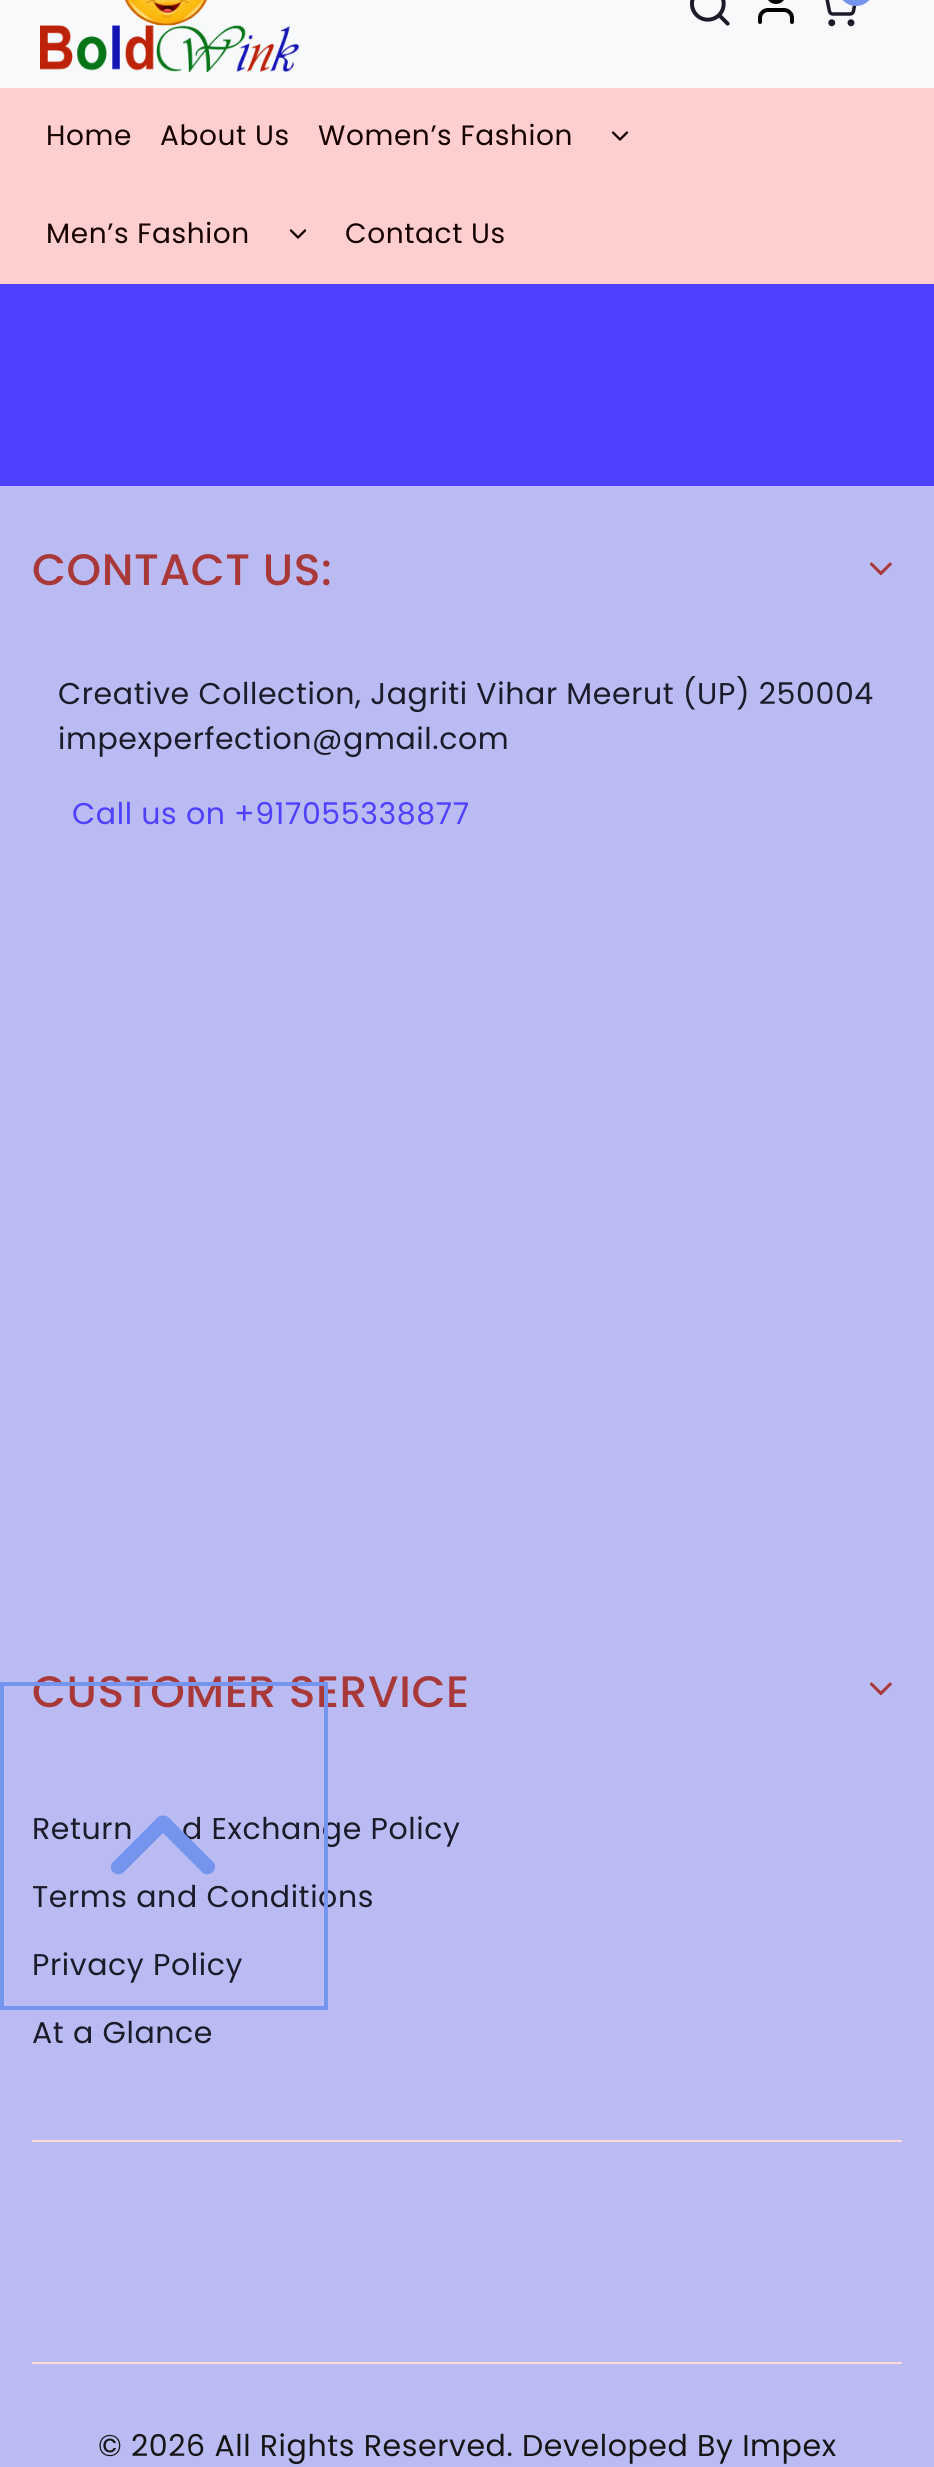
import math
import cairo

surface = cairo.ImageSurface(cairo.FORMAT_RGB24, 934, 2467)
cr = cairo.Context(surface)
options = cairo.FontOptions()
options.set_hint_metrics(cairo.HINT_METRICS_OFF)
options.set_hint_style(cairo.HINT_STYLE_NONE)
cr.set_font_options(options)
cr.set_miter_limit(4)


def rgb(code):
    cr.set_source_rgb(*(v / 255 for v in bytes.fromhex(code[-6:])))


def tracked(x, y, s, letter, word):
    cr.move_to(x, y)
    for ch in s:
        cr.show_text(ch)
        cr.rel_move_to(letter + word * (ch == ' '), 0)


def rrect(x, y, w, h, r):
    cr.new_sub_path()
    for i, (u, v) in enumerate([(x + w - r, y + h - r), (x + r, y + h - r), (x + r, y + r), (x + w - r, y + r)]):
        cr.arc(u, v, r, i * math.pi / 2, (i + 1) * math.pi / 2)
    cr.close_path()


def image(path, x, y, w, h):
    cr.save()
    cr.set_source_surface(cairo.ImageSurface.create_from_png(path), x, y)
    cr.rectangle(x, y, w, h)
    cr.fill()
    cr.restore()


rgb("#bbbbf3")
cr.paint()
rgb("#ffcfcf")
cr.rectangle(0, 88, 934, 196)
cr.fill()
rgb("#f8f9fa")
cr.rectangle(0, 0, 934, 88)
cr.fill()
image("img/1.png", 40, 0, 260, 72)
image("img/2.png", 690, 0, 40, 26)
image("img/3.png", 758, 0, 36, 24)
image("img/4.png", 825, 0, 32, 27)
rgb("#7594ee")
rrect(838, -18, 36, 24, 18)
cr.fill()
image("img/5.png", 611, 131, 18, 10)
image("img/5.png", 289, 229, 18, 10)
rgb("#4d40ff")
cr.rectangle(0, 284, 934, 202)
cr.fill()
image("img/6.png", 869, 562, 23, 14)
image("img/6.png", 869, 1682, 23, 14)
rgb("#ffd8dc")
cr.rectangle(32, 2140, 870, 2)
cr.fill()
cr.rectangle(32, 2362, 870, 2)
cr.fill()
cr.select_font_face("Poppins")
cr.set_font_size(28)
rgb("#160101")
for x, y, s in [
    (46, 145, "Home"),
    (160, 145, "About Us"),
    (318, 145, "Women’s Fashion"),
    (46, 243, "Men’s Fashion"),
    (345, 243, "Contact Us"),
]:
    tracked(x, y, s, 0.6, 0)
cr.select_font_face("Poppins Medium")
cr.set_font_size(44)
rgb("#a93838")
tracked(32, 585, "CONTACT US:", 0.6, 0)
cr.select_font_face("Poppins")
cr.set_font_size(30)
rgb("#1c1b29")
tracked(58, 704, "Creative Collection, Jagriti Vihar Meerut (UP) 250004", 0.6, 0)
tracked(58, 749, "impexperfection@gmail.com", 0.6, 0)
rgb("#4d40ff")
tracked(72, 824, "Call us on +917055338877", 0.6, 0)
cr.select_font_face("Poppins Medium")
cr.set_font_size(44)
rgb("#a93838")
tracked(32, 1707, "CUSTOMER SERVICE", 0.6, 0)
cr.select_font_face("Poppins")
cr.set_font_size(30)
rgb("#1c1b29")
for x, y, s in [
    (32, 1839, "Return"),
    (182, 1839, "d Exchange Policy"),
    (32, 1907, "Terms and Conditions"),
    (32, 1975, "Privacy Policy"),
    (32, 2043, "At a Glance"),
]:
    tracked(x, y, s, 0.6, 0)
rgb("#151515")
tracked(98, 2456, "© 2026 All Rights Reserved. Developed By Impex", 0.6, 0)
cr.rectangle(2, 1684, 324, 324)
rgb("#7594ee")
cr.set_line_width(4)
cr.stroke()
cr.new_path()
cr.move_to(213, 1862)
cr.line_to(168, 1817)
cr.curve_to(165, 1815, 161, 1815, 158, 1817)
cr.line_to(113, 1862)
cr.curve_to(110, 1865, 110, 1870, 113, 1872)
cr.curve_to(116, 1875, 121, 1875, 124, 1872)
cr.line_to(163, 1833)
cr.line_to(203, 1873)
cr.curve_to(211, 1878, 219, 1868, 213, 1862)
cr.close_path()
cr.fill()
surface.write_to_png("page.png")
